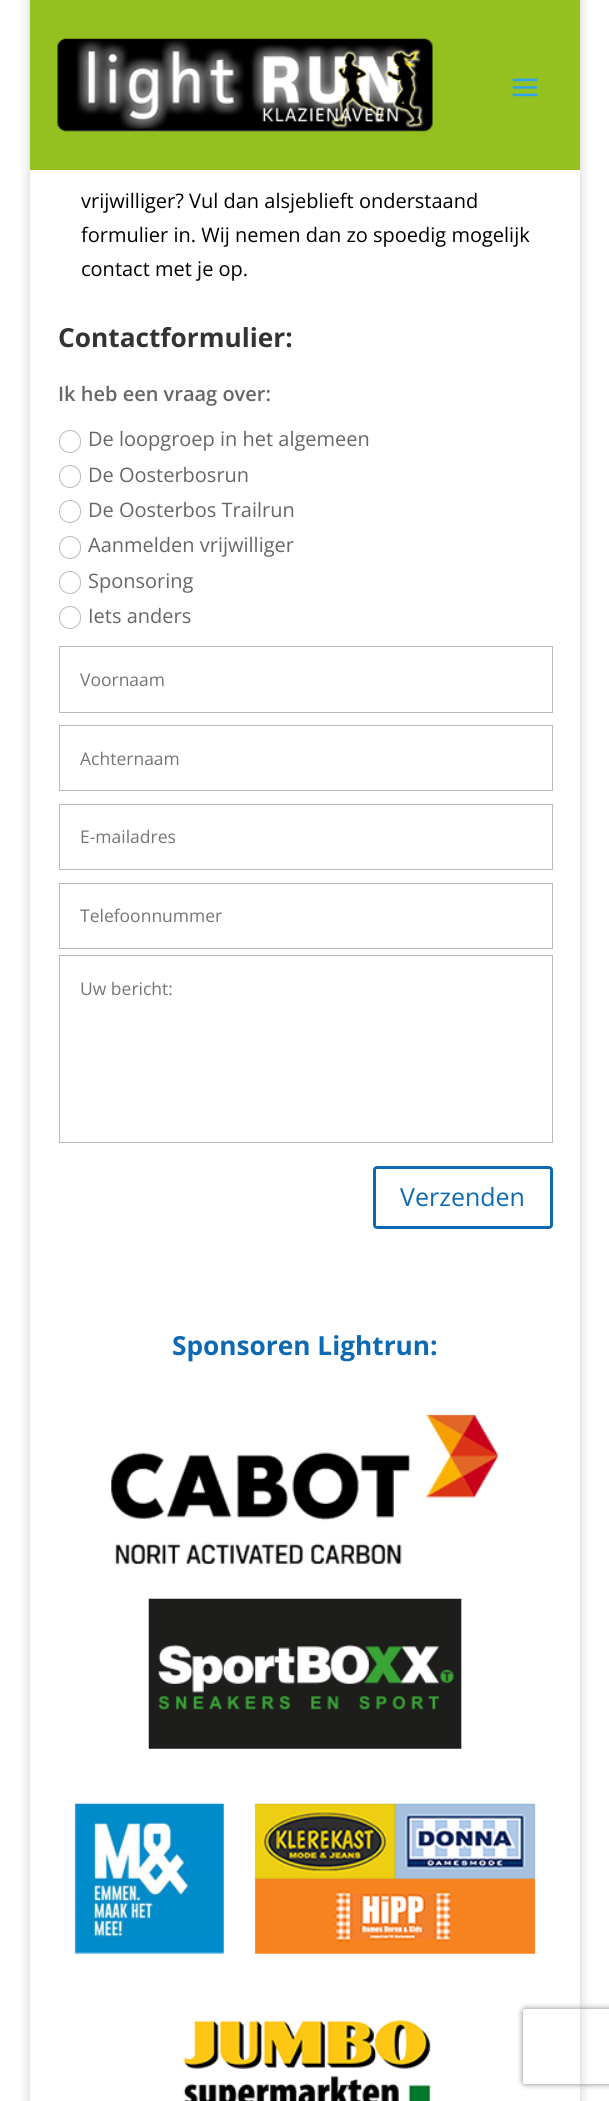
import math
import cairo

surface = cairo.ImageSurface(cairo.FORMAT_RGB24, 609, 2101)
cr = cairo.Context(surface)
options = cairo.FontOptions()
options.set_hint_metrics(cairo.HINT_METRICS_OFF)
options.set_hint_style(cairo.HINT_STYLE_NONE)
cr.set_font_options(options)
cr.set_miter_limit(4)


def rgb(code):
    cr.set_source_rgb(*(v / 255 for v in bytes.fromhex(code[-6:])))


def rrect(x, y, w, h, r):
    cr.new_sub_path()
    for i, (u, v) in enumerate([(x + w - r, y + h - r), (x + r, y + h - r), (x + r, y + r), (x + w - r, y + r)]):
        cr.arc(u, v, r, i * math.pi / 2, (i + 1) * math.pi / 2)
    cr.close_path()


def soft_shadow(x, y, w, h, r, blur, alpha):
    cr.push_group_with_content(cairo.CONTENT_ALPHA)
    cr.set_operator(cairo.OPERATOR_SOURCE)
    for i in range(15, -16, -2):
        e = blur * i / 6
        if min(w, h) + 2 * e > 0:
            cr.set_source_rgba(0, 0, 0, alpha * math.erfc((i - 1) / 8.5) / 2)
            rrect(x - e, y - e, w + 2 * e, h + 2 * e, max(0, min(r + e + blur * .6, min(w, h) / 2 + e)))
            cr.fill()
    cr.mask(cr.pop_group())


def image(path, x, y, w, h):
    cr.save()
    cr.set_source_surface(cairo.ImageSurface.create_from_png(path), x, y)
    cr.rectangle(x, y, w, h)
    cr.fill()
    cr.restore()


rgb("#ffffff")
cr.paint()
cr.save()
cr.set_fill_rule(cairo.FILL_RULE_EVEN_ODD)
cr.new_path()
cr.move_to(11, 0)
cr.line_to(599, 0)
cr.line_to(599, 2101)
cr.line_to(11, 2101)
cr.close_path()
cr.move_to(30, -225)
cr.line_to(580, -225)
cr.line_to(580, 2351)
cr.line_to(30, 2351)
cr.close_path()
cr.clip()
rgb("#000000")
soft_shadow(30, -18, 550, 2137, 0, 6, 0.2)
cr.restore()
rgb("#94c120")
cr.rectangle(30, 0, 550, 170)
cr.fill()
image("img/1.png", 57, 38, 376, 94)
image("img/2.png", 512, 78, 26, 19)
rrect(59.5, 430.5, 21, 22, 10.5)
rgb("#bababa")
cr.set_line_width(1)
cr.stroke()
rrect(59.5, 465.5, 21, 22, 10.5)
cr.stroke()
rrect(59.5, 500.5, 21, 22, 10.5)
cr.stroke()
rrect(59.5, 536.5, 21, 22, 10.5)
cr.stroke()
rrect(59.5, 571.5, 21, 22, 10.5)
cr.stroke()
rrect(59.5, 606.5, 21, 22, 10.5)
cr.stroke()
cr.rectangle(59.5, 646.5, 493, 66)
cr.stroke()
cr.rectangle(59.5, 725.5, 493, 65)
cr.stroke()
cr.rectangle(59.5, 804.5, 493, 65)
cr.stroke()
cr.rectangle(59.5, 883.5, 493, 65)
cr.stroke()
cr.rectangle(59.5, 955.5, 493, 187)
cr.stroke()
rrect(374.5, 1167.5, 177, 60, 2.5)
rgb("#0c69b2")
cr.set_line_width(3)
cr.stroke()
image("img/3.png", 111, 1414, 387, 150)
image("img/4.png", 148, 1598, 314, 151)
image("img/5.png", 74, 1803, 150, 151)
image("img/6.png", 254, 1803, 282, 151)
image("img/7.png", 183, 2019, 248, 82)
cr.save()
cr.set_fill_rule(cairo.FILL_RULE_EVEN_ODD)
cr.new_path()
cr.move_to(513, 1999)
cr.line_to(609, 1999)
cr.line_to(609, 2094)
cr.line_to(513, 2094)
cr.close_path()
cr.move_to(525.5, 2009)
cr.line_to(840.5, 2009)
cr.curve_to(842, 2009, 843, 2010, 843, 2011.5)
cr.line_to(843, 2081.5)
cr.curve_to(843, 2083, 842, 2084, 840.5, 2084)
cr.line_to(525.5, 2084)
cr.curve_to(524, 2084, 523, 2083, 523, 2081.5)
cr.line_to(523, 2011.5)
cr.curve_to(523, 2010, 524, 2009, 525.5, 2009)
cr.close_path()
cr.clip()
rgb("#808080")
soft_shadow(523, 2009, 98, 75, 2.5, 3, 1)
cr.restore()
cr.select_font_face("Open Sans")
cr.set_font_size(20)
rgb("#000000")
for x, y, s in [
    (81, 208, "vrijwilliger? Vul dan alsjeblieft onderstaand"),
    (81, 242, "formulier in. Wij nemen dan zo spoedig mogelijk"),
    (81, 276, "contact met je op."),
]:
    cr.move_to(x, y)
    cr.show_text(s)
cr.select_font_face("Open Sans", cairo.FONT_SLANT_NORMAL, cairo.FONT_WEIGHT_BOLD)
cr.set_font_size(26.25)
rgb("#333333")
cr.move_to(58, 347)
cr.show_text("Contactformulier:")
cr.select_font_face("Open Sans SemiBold")
cr.set_font_size(20)
rgb("#666666")
cr.move_to(58, 401)
cr.show_text("Ik heb een vraag over:")
cr.select_font_face("Open Sans")
for x, y, s in [
    (88, 446, "De loopgroep in het algemeen"),
    (88, 482, "De Oosterbosrun"),
    (88, 517, "De Oosterbos Trailrun"),
    (88, 552, "Aanmelden vrijwilliger"),
    (88, 588, "Sponsoring"),
    (88, 623, "Iets anders"),
]:
    cr.move_to(x, y)
    cr.show_text(s)
cr.set_font_size(17.5)
rgb("#757575")
for x, y, s in [
    (80, 686, "Voornaam"),
    (80, 765, "Achternaam"),
    (80, 843, "E-mailadres"),
    (80, 922, "Telefoonnummer"),
    (80, 995, "Uw bericht:"),
]:
    cr.move_to(x, y)
    cr.show_text(s)
cr.set_font_size(25)
rgb("#0c69b2")
cr.move_to(400, 1206)
cr.show_text("Verzenden")
cr.select_font_face("Open Sans", cairo.FONT_SLANT_NORMAL, cairo.FONT_WEIGHT_BOLD)
cr.set_font_size(26.25)
cr.move_to(172, 1355)
cr.show_text("Sponsoren Lightrun:")
surface.write_to_png("page.png")
